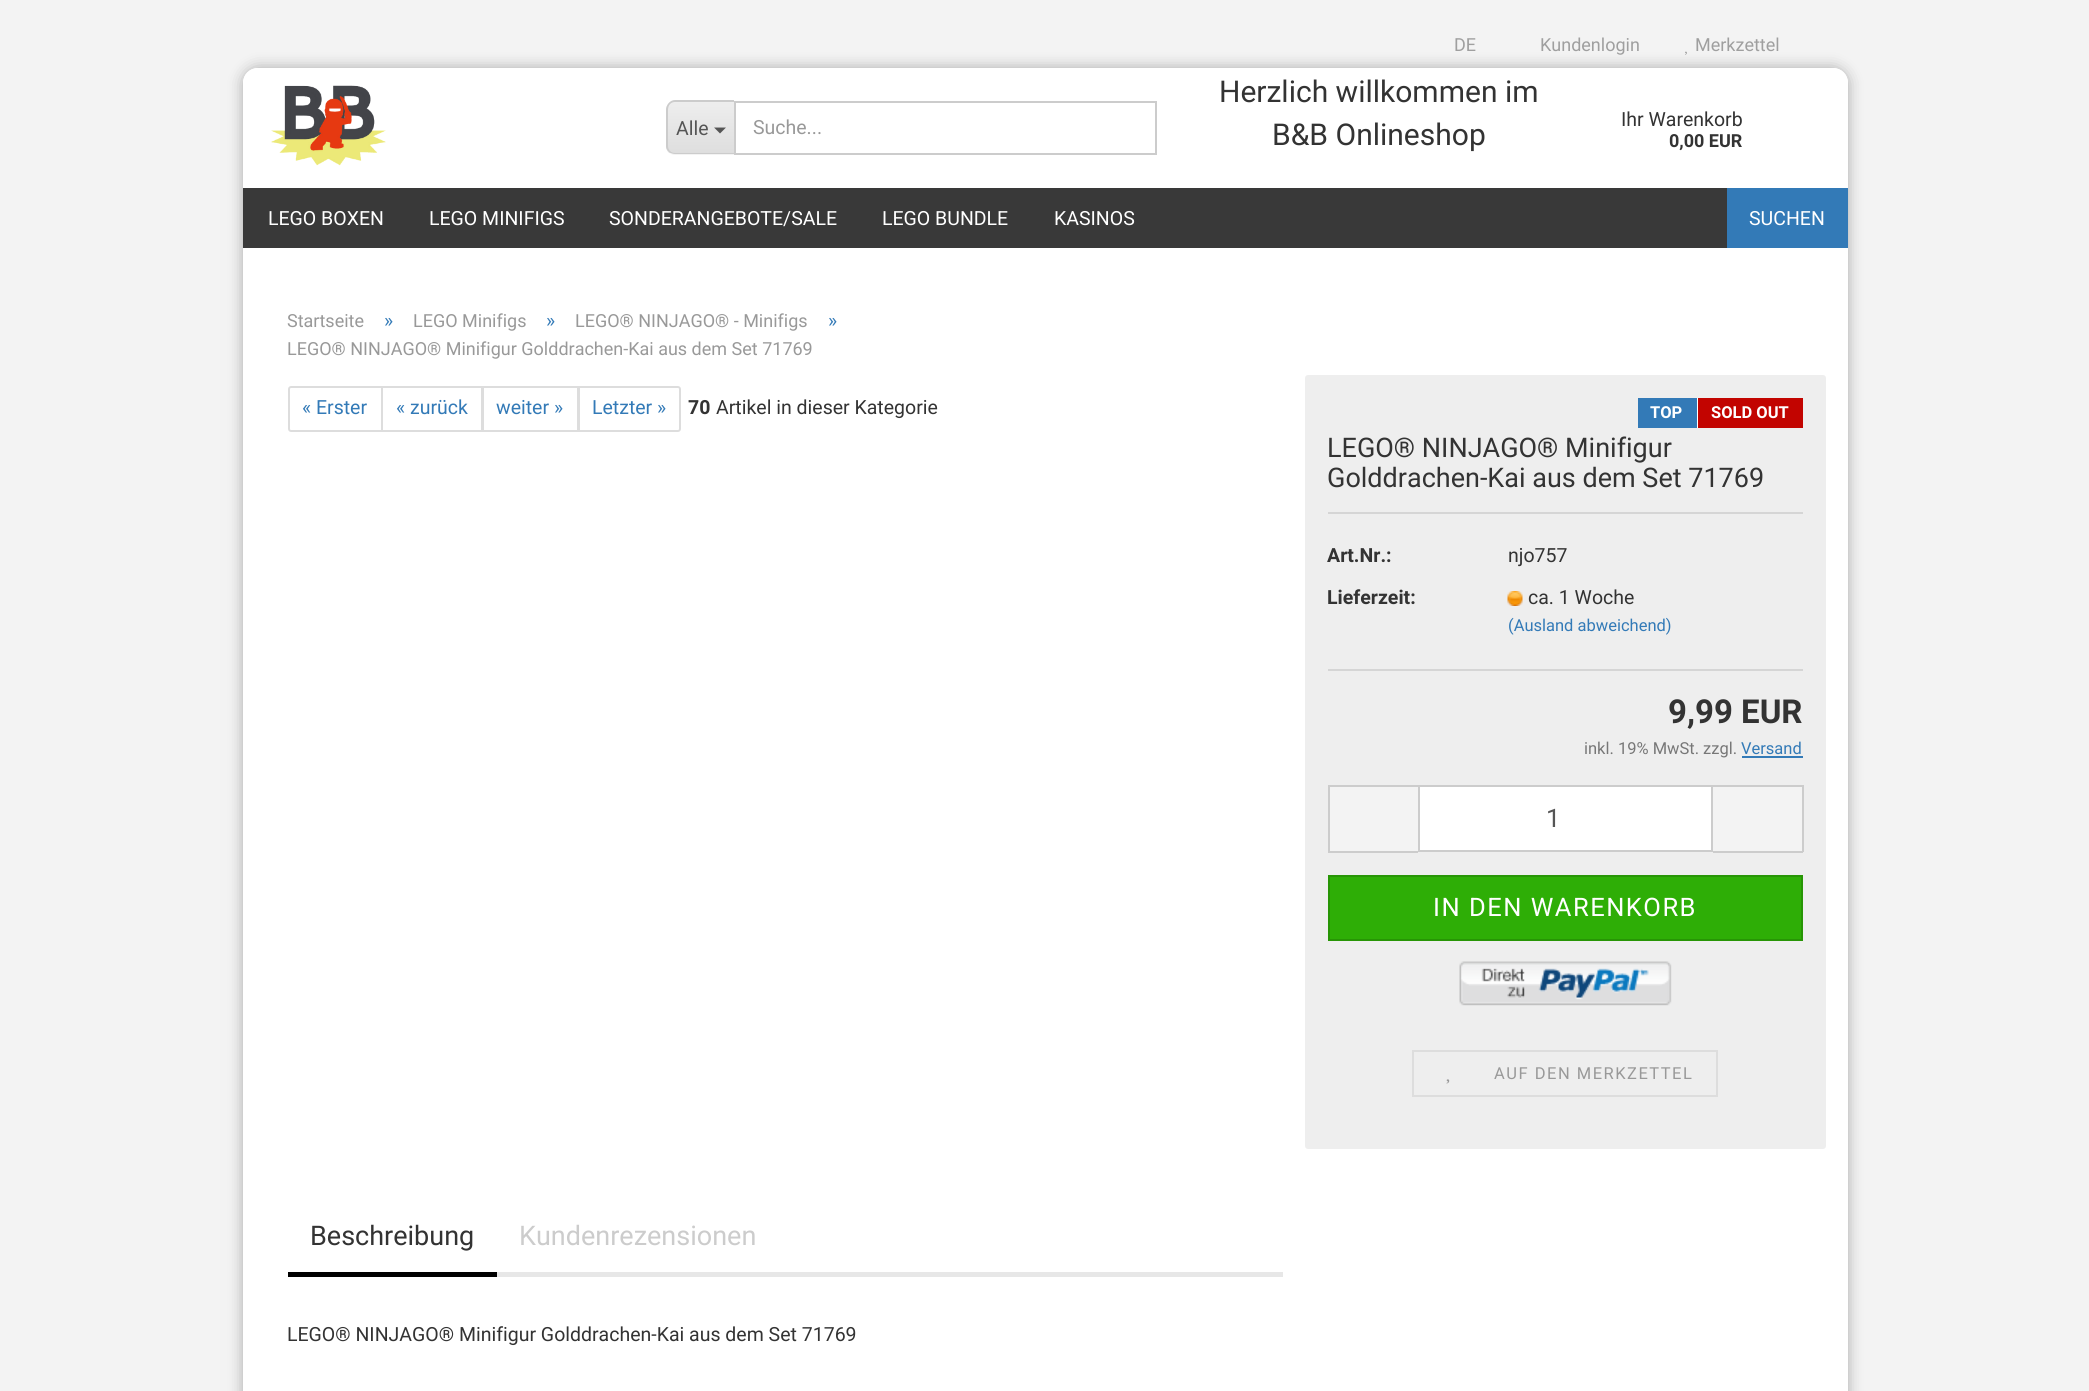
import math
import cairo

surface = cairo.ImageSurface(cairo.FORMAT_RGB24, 2089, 1391)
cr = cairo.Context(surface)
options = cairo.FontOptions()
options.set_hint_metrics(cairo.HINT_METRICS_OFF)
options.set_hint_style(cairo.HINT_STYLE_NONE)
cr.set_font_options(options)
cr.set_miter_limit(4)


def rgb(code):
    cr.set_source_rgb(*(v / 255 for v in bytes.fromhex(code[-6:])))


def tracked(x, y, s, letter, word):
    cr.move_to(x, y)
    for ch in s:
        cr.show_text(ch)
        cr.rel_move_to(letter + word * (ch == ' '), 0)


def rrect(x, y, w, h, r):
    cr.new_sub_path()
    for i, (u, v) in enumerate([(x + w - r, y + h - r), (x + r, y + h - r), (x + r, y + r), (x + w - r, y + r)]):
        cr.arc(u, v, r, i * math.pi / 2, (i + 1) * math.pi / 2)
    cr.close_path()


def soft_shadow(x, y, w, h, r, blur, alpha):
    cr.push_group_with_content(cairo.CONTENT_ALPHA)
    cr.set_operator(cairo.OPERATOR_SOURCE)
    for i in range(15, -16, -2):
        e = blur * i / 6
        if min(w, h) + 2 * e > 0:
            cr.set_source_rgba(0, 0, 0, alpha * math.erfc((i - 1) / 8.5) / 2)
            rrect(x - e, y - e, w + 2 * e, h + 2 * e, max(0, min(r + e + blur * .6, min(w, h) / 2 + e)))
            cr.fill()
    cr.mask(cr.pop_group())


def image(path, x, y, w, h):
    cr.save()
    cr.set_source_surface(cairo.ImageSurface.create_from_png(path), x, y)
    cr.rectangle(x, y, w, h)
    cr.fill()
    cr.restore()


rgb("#f3f3f3")
cr.paint()
rgb("#000000")
soft_shadow(243, 68, 1605, 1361, 15, 7.5, 0.3)
rgb("#ffffff")
rrect(243, 68, 1605, 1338, 15)
cr.fill()
cr.new_path()
cr.move_to(258, 68)
cr.line_to(1833, 68)
cr.curve_to(1841.5, 68, 1848, 74.5, 1848, 83)
cr.line_to(1848, 275)
cr.curve_to(1848, 276.5, 1846.5, 278, 1845, 278)
cr.line_to(246, 278)
cr.curve_to(244.5, 278, 243, 276.5, 243, 275)
cr.line_to(243, 83)
cr.curve_to(243, 74.5, 249.5, 68, 258, 68)
cr.close_path()
cr.fill()
image("img/1.png", 1685, 51, 2, 4)
image("img/2.png", 271, 85, 115, 81)
rgb("#f3f3f3")
cr.new_path()
cr.move_to(675, 101)
cr.line_to(734, 101)
cr.line_to(734, 155)
cr.line_to(675, 155)
cr.curve_to(670, 155, 666, 151, 666, 146)
cr.line_to(666, 110)
cr.curve_to(666, 105, 670, 101, 675, 101)
cr.close_path()
cr.fill()
cr.save()
cr.new_path()
cr.move_to(675, 101)
cr.line_to(734, 101)
cr.line_to(734, 155)
cr.line_to(675, 155)
cr.curve_to(670, 155, 666, 151, 666, 146)
cr.line_to(666, 110)
cr.curve_to(666, 105, 670, 101, 675, 101)
cr.close_path()
cr.clip()
gradient = cairo.LinearGradient(701, 102, 701, 153)
gradient.add_color_stop_rgba(0, 0.933, 0.933, 0.933, 1)
gradient.add_color_stop_rgba(1, 0.871, 0.871, 0.871, 1)
cr.set_source(gradient)
cr.rectangle(666, 102, 68, 51)
cr.fill()
cr.restore()
rgb("#cccccc")
cr.set_fill_rule(cairo.FILL_RULE_EVEN_ODD)
cr.new_path()
cr.move_to(675, 100)
cr.line_to(734, 100)
cr.line_to(734, 154)
cr.line_to(675, 154)
cr.curve_to(670, 154, 666, 150, 666, 146)
cr.line_to(666, 110)
cr.curve_to(666, 105, 670, 100, 675, 100)
cr.close_path()
cr.move_to(675, 102)
cr.line_to(734, 102)
cr.line_to(734, 153)
cr.line_to(675, 153)
cr.curve_to(671, 153, 668, 150, 668, 146)
cr.line_to(668, 110)
cr.curve_to(668, 105, 671, 102, 675, 102)
cr.close_path()
cr.fill()
rgb("#555555")
cr.set_fill_rule(cairo.FILL_RULE_WINDING)
cr.new_path()
cr.move_to(714, 127.5)
cr.line_to(726, 127.5)
cr.line_to(720, 133.5)
cr.close_path()
cr.fill()
cr.rectangle(735, 102, 421, 52)
rgb("#cccccc")
cr.stroke()
rgb("#393939")
cr.rectangle(243, 188, 1484, 60)
cr.fill()
rgb("#337ab7")
cr.rectangle(1727, 188, 121, 60)
cr.fill()
cr.new_path()
cr.move_to(291, 387)
cr.line_to(382, 387)
cr.line_to(382, 431)
cr.line_to(291, 431)
cr.curve_to(290, 431, 289, 430, 289, 429)
cr.line_to(289, 389)
cr.curve_to(289, 388, 290, 387, 291, 387)
cr.close_path()
rgb("#dddddd")
cr.stroke()
cr.rectangle(382, 387, 100, 44)
cr.stroke()
cr.rectangle(483, 387, 95, 44)
cr.stroke()
rgb("#ffffff")
cr.new_path()
cr.move_to(579, 387)
cr.line_to(678, 387)
cr.curve_to(679, 387, 680, 388, 680, 389)
cr.line_to(680, 429)
cr.curve_to(680, 430, 679, 431, 678, 431)
cr.line_to(579, 431)
cr.close_path()
cr.fill_preserve()
rgb("#dddddd")
cr.stroke()
rgb("#eeeeee")
rrect(1305, 375, 521, 774, 3)
cr.fill()
for x, y, w, h, color in [
    (1638, 398, 59, 30, "#337ab7"),
    (1697, 398, 1, 30, "#ffffff"),
    (1698, 398, 105, 30, "#c20400"),
    (1328, 512, 475, 2, "#d5d5d5"),
    (1328, 669, 475, 2, "#d5d5d5"),
]:
    rgb(color)
    cr.rectangle(x, y, w, h)
    cr.fill()
image("img/3.png", 1507, 591, 16, 15)
for x, y, w, h, color in [
    (1742, 756, 61, 2, "#337ab7"),
    (1330, 787, 88, 64, "#f3f3f3"),
    (1328, 785, 90, 2, "#cccccc"),
    (1328, 851, 90, 2, "#cccccc"),
    (1328, 785, 2, 67, "#cccccc"),
]:
    rgb(color)
    cr.rectangle(x, y, w, h)
    cr.fill()
rgb("#ffffff")
cr.rectangle(1419, 786, 293, 65)
cr.fill_preserve()
rgb("#cccccc")
cr.stroke()
for x, y, w, h, color in [
    (1713, 787, 89, 64, "#f3f3f3"),
    (1713, 785, 90, 2, "#cccccc"),
    (1802, 785, 2, 67, "#cccccc"),
    (1713, 851, 90, 2, "#cccccc"),
]:
    rgb(color)
    cr.rectangle(x, y, w, h)
    cr.fill()
rgb("#2eae06")
cr.rectangle(1329, 876, 473, 64)
cr.fill_preserve()
rgb("#279505")
cr.stroke()
image("img/4.png", 1459, 961, 213, 45)
cr.rectangle(1413, 1051, 304, 45)
rgb("#dddddd")
cr.stroke()
image("img/5.png", 1446, 1079, 4, 5)
rgb("#e7e7e7")
cr.rectangle(497, 1272, 786, 5)
cr.fill()
rgb("#000000")
cr.rectangle(288, 1272, 209, 5)
cr.fill()
cr.select_font_face("Roboto")
cr.set_font_size(18)
rgb("#9f9f9f")
for x, y, s in [
    (1454, 51, "DE"),
    (1540, 51, "Kundenlogin"),
    (1695, 51, "Merkzettel"),
]:
    cr.move_to(x, y)
    cr.show_text(s)
cr.set_font_size(19.5)
rgb("#555555")
cr.move_to(676, 135)
cr.show_text("Alle")
rgb("#999999")
cr.move_to(753, 134)
cr.show_text("Suche...")
cr.set_font_size(30)
rgb("#333333")
cr.move_to(1219, 102)
cr.show_text("Herzlich willkommen im")
cr.move_to(1272, 145)
cr.show_text("B&B Onlineshop")
cr.set_font_size(19.5)
cr.move_to(1621, 126)
cr.show_text("Ihr Warenkorb")
cr.select_font_face("Roboto", cairo.FONT_SLANT_NORMAL, cairo.FONT_WEIGHT_BOLD)
cr.set_font_size(18)
cr.move_to(1669, 147)
cr.show_text("0,00 EUR")
cr.select_font_face("Roboto")
cr.set_font_size(19.5)
rgb("#ffffff")
for x, y, s in [
    (268, 225, "LEGO BOXEN"),
    (429, 225, "LEGO MINIFIGS"),
    (609, 225, "SONDERANGEBOTE/SALE"),
    (882, 225, "LEGO BUNDLE"),
    (1054, 225, "KASINOS"),
    (1749, 225, "SUCHEN"),
]:
    cr.move_to(x, y)
    cr.show_text(s)
cr.set_font_size(18)
rgb("#999999")
cr.move_to(287, 327)
cr.show_text("Startseite")
cr.set_font_size(19.5)
rgb("#337ab7")
cr.move_to(384, 327)
cr.show_text("»")
cr.set_font_size(18)
rgb("#999999")
cr.move_to(413, 327)
cr.show_text("LEGO Minifigs")
cr.set_font_size(19.5)
rgb("#337ab7")
cr.move_to(546, 327)
cr.show_text("»")
cr.set_font_size(18)
rgb("#999999")
cr.move_to(575, 327)
cr.show_text("LEGO® NINJAGO® - Minifigs")
cr.set_font_size(19.5)
rgb("#337ab7")
cr.move_to(828, 327)
cr.show_text("»")
cr.set_font_size(18)
rgb("#999999")
cr.move_to(287, 355)
cr.show_text("LEGO® NINJAGO® Minifigur Golddrachen-Kai aus dem Set 71769")
cr.set_font_size(19.5)
rgb("#337ab7")
for x, y, s in [
    (302, 414, "« Erster"),
    (396, 414, "« zurück"),
    (496, 414, "weiter »"),
    (592, 414, "Letzter »"),
]:
    cr.move_to(x, y)
    cr.show_text(s)
cr.select_font_face("Roboto", cairo.FONT_SLANT_NORMAL, cairo.FONT_WEIGHT_BOLD)
rgb("#333333")
cr.move_to(688, 414)
cr.show_text("70")
cr.select_font_face("Roboto")
cr.move_to(716, 414)
cr.show_text("Artikel in dieser Kategorie")
cr.select_font_face("Roboto", cairo.FONT_SLANT_NORMAL, cairo.FONT_WEIGHT_BOLD)
cr.set_font_size(16.5)
rgb("#ffffff")
cr.move_to(1650, 418)
cr.show_text("TOP")
cr.move_to(1711, 418)
cr.show_text("SOLD OUT")
cr.select_font_face("Roboto")
cr.set_font_size(27)
rgb("#333333")
cr.move_to(1327, 457)
cr.show_text("LEGO® NINJAGO® Minifigur")
cr.move_to(1327, 487)
cr.show_text("Golddrachen-Kai aus dem Set 71769")
cr.select_font_face("Roboto", cairo.FONT_SLANT_NORMAL, cairo.FONT_WEIGHT_BOLD)
cr.set_font_size(19.5)
cr.move_to(1327, 562)
cr.show_text("Art.Nr.:")
cr.select_font_face("Roboto")
cr.move_to(1508, 562)
cr.show_text("njo757")
cr.select_font_face("Roboto", cairo.FONT_SLANT_NORMAL, cairo.FONT_WEIGHT_BOLD)
cr.move_to(1327, 604)
cr.show_text("Lieferzeit:")
cr.select_font_face("Roboto")
cr.move_to(1528, 604)
cr.show_text("ca. 1 Woche")
cr.set_font_size(16.5)
rgb("#337ab7")
cr.move_to(1508, 631)
cr.show_text("(Ausland abweichend)")
cr.select_font_face("Roboto", cairo.FONT_SLANT_NORMAL, cairo.FONT_WEIGHT_BOLD)
cr.set_font_size(33)
rgb("#333333")
cr.move_to(1668, 723)
cr.show_text("9,99 EUR")
cr.select_font_face("Roboto")
cr.set_font_size(16.5)
rgb("#777777")
cr.move_to(1584, 754)
cr.show_text("inkl. 19% MwSt. zzgl.")
rgb("#337ab7")
cr.move_to(1741, 754)
cr.show_text("Versand")
cr.set_font_size(25.5)
rgb("#555555")
cr.move_to(1546, 827)
cr.show_text("1")
rgb("#ffffff")
tracked(1433, 916, "IN DEN WARENKORB", 1.5, 0)
cr.set_font_size(16.5)
rgb("#999999")
tracked(1494, 1079, "AUF DEN MERKZETTEL", 1.5, 0)
cr.set_font_size(27)
rgb("#333333")
cr.move_to(310, 1245)
cr.show_text("Beschreibung")
rgb("#cccccc")
cr.move_to(519, 1245)
cr.show_text("Kundenrezensionen")
cr.set_font_size(19.5)
rgb("#333333")
cr.move_to(287, 1341)
cr.show_text("LEGO® NINJAGO® Minifigur Golddrachen-Kai aus dem Set 71769")
surface.write_to_png("page.png")
